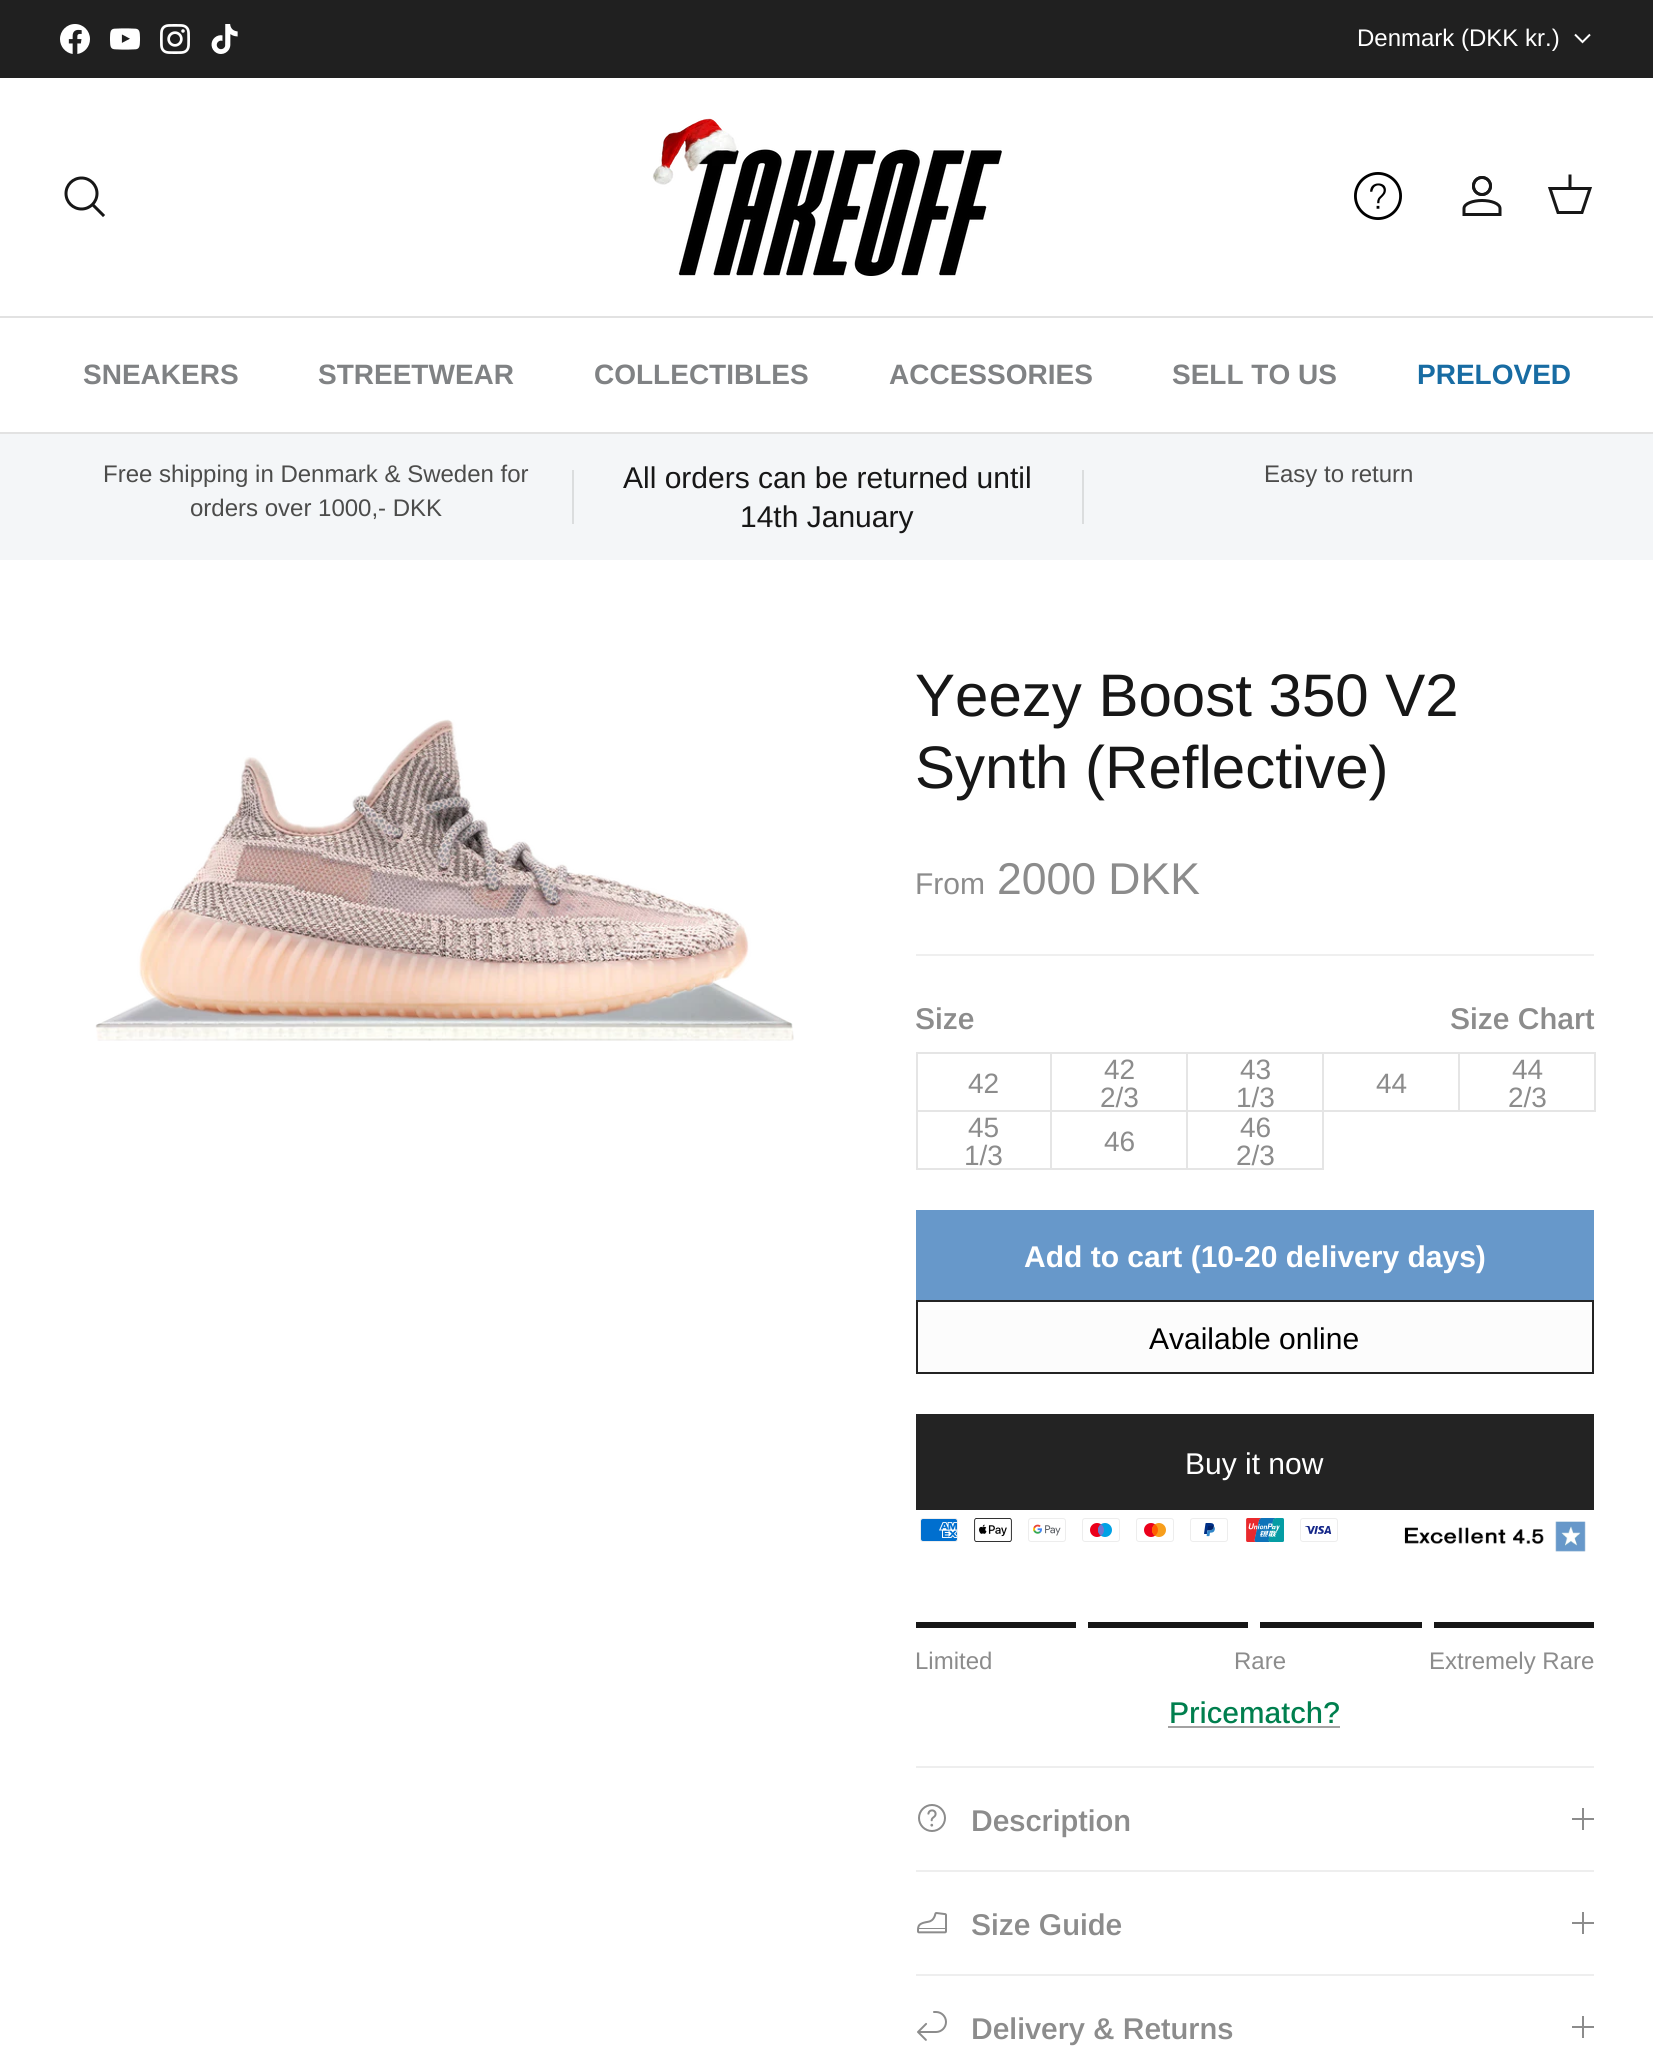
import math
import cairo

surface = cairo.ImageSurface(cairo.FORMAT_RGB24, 1653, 2057)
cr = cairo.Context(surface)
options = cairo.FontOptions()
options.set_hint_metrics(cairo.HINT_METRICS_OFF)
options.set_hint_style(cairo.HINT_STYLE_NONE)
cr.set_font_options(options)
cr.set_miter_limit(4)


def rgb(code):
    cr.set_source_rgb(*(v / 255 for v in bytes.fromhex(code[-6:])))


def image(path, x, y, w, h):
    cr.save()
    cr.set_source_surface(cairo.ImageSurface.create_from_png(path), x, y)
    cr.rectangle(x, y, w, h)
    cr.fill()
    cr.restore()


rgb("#ffffff")
cr.paint()
rgb("#202020")
cr.rectangle(0, 0, 1653, 78)
cr.fill()
image("img/1.png", 60, 24, 30, 30)
image("img/2.png", 110, 28, 30, 22)
image("img/3.png", 160, 24, 30, 30)
image("img/4.png", 211, 24, 27, 30)
cr.new_path()
cr.move_to(1590, 34.5)
cr.line_to(1582.5, 42)
cr.line_to(1575, 34.5)
rgb("#ffffff")
cr.stroke()
rgb("#e2e2e2")
cr.rectangle(0, 316, 1653, 2)
cr.fill()
cr.arc(81.5, 193.5, 15.5, 0, 2 * math.pi)
rgb("#171717")
cr.set_line_width(3)
cr.stroke()
cr.new_path()
cr.move_to(94, 206)
cr.line_to(103, 215)
cr.set_line_cap(cairo.LINE_CAP_SQUARE)
cr.stroke()
image("img/5.png", 652, 118, 350, 158)
image("img/6.png", 1354, 172, 48, 48)
image("img/7.png", 1462, 176, 40, 40)
cr.new_path()
cr.move_to(1550, 188.5)
cr.line_to(1590, 188.5)
cr.line_to(1582, 212.5)
cr.line_to(1558, 212.5)
cr.close_path()
cr.set_line_cap(cairo.LINE_CAP_BUTT)
cr.stroke()
cr.new_path()
cr.move_to(1570, 188)
cr.line_to(1570, 176)
cr.set_line_cap(cairo.LINE_CAP_SQUARE)
cr.stroke()
for x, y, w, h, color in [
    (0, 432, 1653, 2, "#e2e2e2"),
    (0, 434, 1653, 126, "#f4f6f8"),
    (572, 470, 2, 54, "#dbddde"),
    (1082, 470, 2, 54, "#dbddde"),
]:
    rgb(color)
    cr.rectangle(x, y, w, h)
    cr.fill()
image("img/8.png", 95, 719, 699, 322)
rgb("#efefef")
cr.rectangle(916, 954, 678, 2)
cr.fill()
cr.rectangle(917, 1053, 134, 58)
rgb("#e5e5e5")
cr.set_line_width(2)
cr.set_line_cap(cairo.LINE_CAP_BUTT)
cr.stroke()
cr.rectangle(1051, 1053, 136, 58)
cr.stroke()
cr.rectangle(1187, 1053, 136, 58)
cr.stroke()
cr.rectangle(1323, 1053, 136, 58)
cr.stroke()
cr.rectangle(1459, 1053, 136, 58)
cr.stroke()
cr.rectangle(917, 1111, 134, 58)
cr.stroke()
cr.rectangle(1051, 1111, 136, 58)
cr.stroke()
cr.rectangle(1187, 1111, 136, 58)
cr.stroke()
rgb("#6798ca")
cr.rectangle(916, 1210, 678, 90)
cr.fill()
rgb("#fcfcfc")
cr.rectangle(917, 1301, 676, 72)
cr.fill_preserve()
rgb("#232323")
cr.stroke()
cr.rectangle(916, 1414, 678, 96)
cr.fill()
image("img/9.png", 920, 1518, 38, 24)
image("img/10.png", 974, 1518, 38, 24)
image("img/11.png", 1028, 1518, 38, 24)
image("img/12.png", 1082, 1518, 38, 24)
image("img/13.png", 1136, 1518, 38, 24)
image("img/14.png", 1190, 1518, 38, 24)
image("img/15.png", 1246, 1518, 38, 24)
image("img/16.png", 1300, 1518, 38, 24)
image("img/17.png", 1404, 1521, 182, 31)
for x, y, w, h, color in [
    (916, 1622, 160, 6, "#171717"),
    (1088, 1622, 160, 6, "#171717"),
    (1260, 1622, 162, 6, "#171717"),
    (1434, 1622, 160, 6, "#171717"),
    (1168, 1726, 172, 2, "#a2a2a2"),
    (916, 1766, 678, 2, "#eeeeee"),
    (916, 1870, 678, 2, "#eeeeee"),
]:
    rgb(color)
    cr.rectangle(x, y, w, h)
    cr.fill()
image("img/18.png", 918, 1804, 28, 28)
for x, y, w, h, color in [
    (1582, 1808, 2, 22, "#8c8c8c"),
    (1572, 1818, 22, 2, "#8c8c8c"),
    (916, 1974, 678, 2, "#eeeeee"),
]:
    rgb(color)
    cr.rectangle(x, y, w, h)
    cr.fill()
image("img/19.png", 917, 1912, 30, 22)
rgb("#8c8c8c")
cr.rectangle(1582, 1912, 2, 22)
cr.fill()
cr.rectangle(1572, 1922, 22, 2)
cr.fill()
image("img/20.png", 917, 2011, 30, 30)
cr.rectangle(1582, 2016, 2, 22)
cr.fill()
cr.rectangle(1572, 2026, 22, 2)
cr.fill()
cr.select_font_face("Arimo")
cr.set_font_size(24)
rgb("#ffffff")
cr.move_to(1357, 46)
cr.show_text("Denmark (DKK kr.)")
cr.select_font_face("Arimo", cairo.FONT_SLANT_NORMAL, cairo.FONT_WEIGHT_BOLD)
cr.set_font_size(28)
rgb("#808284")
for x, y, s in [
    (83, 384, "SNEAKERS"),
    (318, 384, "STREETWEAR"),
    (594, 384, "COLLECTIBLES"),
    (889, 384, "ACCESSORIES"),
    (1172, 384, "SELL TO US"),
]:
    cr.move_to(x, y)
    cr.show_text(s)
rgb("#186ca3")
cr.move_to(1417, 384)
cr.show_text("PRELOVED")
cr.select_font_face("Arimo")
cr.set_font_size(24)
rgb("#4c4c4b")
cr.move_to(103, 482)
cr.show_text("Free shipping in Denmark & Sweden for")
cr.move_to(190, 516)
cr.show_text("orders over 1000,- DKK")
cr.set_font_size(30)
rgb("#171717")
cr.move_to(623, 488)
cr.show_text("All orders can be returned until")
cr.move_to(740, 527)
cr.show_text("14th January")
cr.set_font_size(24)
rgb("#4c4c4b")
cr.move_to(1264, 482)
cr.show_text("Easy to return")
cr.set_font_size(60)
rgb("#171717")
cr.move_to(915, 716)
cr.show_text("Yeezy Boost 350 V2")
cr.move_to(915, 788)
cr.show_text("Synth (Reflective)")
cr.set_font_size(30)
rgb("#8c8c8c")
cr.move_to(915, 894)
cr.show_text("From")
cr.set_font_size(44.5)
cr.move_to(997, 894)
cr.show_text("2000 DKK")
cr.select_font_face("Arimo SemiBold")
cr.set_font_size(30)
cr.move_to(915, 1029)
cr.show_text("Size")
cr.move_to(1450, 1029)
cr.show_text("Size Chart")
cr.select_font_face("Arimo")
cr.set_font_size(28)
for x, y, s in [
    (968, 1093, "42"),
    (1104, 1079, "42"),
    (1100, 1107, "2/3"),
    (1240, 1079, "43"),
    (1236, 1107, "1/3"),
    (1376, 1093, "44"),
    (1512, 1079, "44"),
    (1508, 1107, "2/3"),
    (968, 1137, "45"),
    (964, 1165, "1/3"),
    (1104, 1151, "46"),
    (1240, 1137, "46"),
    (1236, 1165, "2/3"),
]:
    cr.move_to(x, y)
    cr.show_text(s)
cr.select_font_face("Arimo", cairo.FONT_SLANT_NORMAL, cairo.FONT_WEIGHT_BOLD)
cr.set_font_size(30)
rgb("#ffffff")
cr.move_to(1024, 1267)
cr.show_text("Add to cart (10-20 delivery days)")
cr.select_font_face("Arimo")
rgb("#000000")
cr.move_to(1149, 1349)
cr.show_text("Available online")
rgb("#ffffff")
cr.move_to(1185, 1474)
cr.show_text("Buy it now")
cr.set_font_size(24)
rgb("#8c8c8c")
for x, y, s in [
    (915, 1669, "Limited"),
    (1234, 1669, "Rare"),
    (1429, 1669, "Extremely Rare"),
]:
    cr.move_to(x, y)
    cr.show_text(s)
cr.select_font_face("Arimo Medium")
cr.set_font_size(30)
rgb("#007f4e")
cr.move_to(1169, 1723)
cr.show_text("Pricematch?")
cr.select_font_face("Arimo SemiBold")
rgb("#8c8c8c")
for x, y, s in [
    (971, 1831, "Description"),
    (971, 1935, "Size Guide"),
    (971, 2039, "Delivery & Returns"),
]:
    cr.move_to(x, y)
    cr.show_text(s)
surface.write_to_png("page.png")
